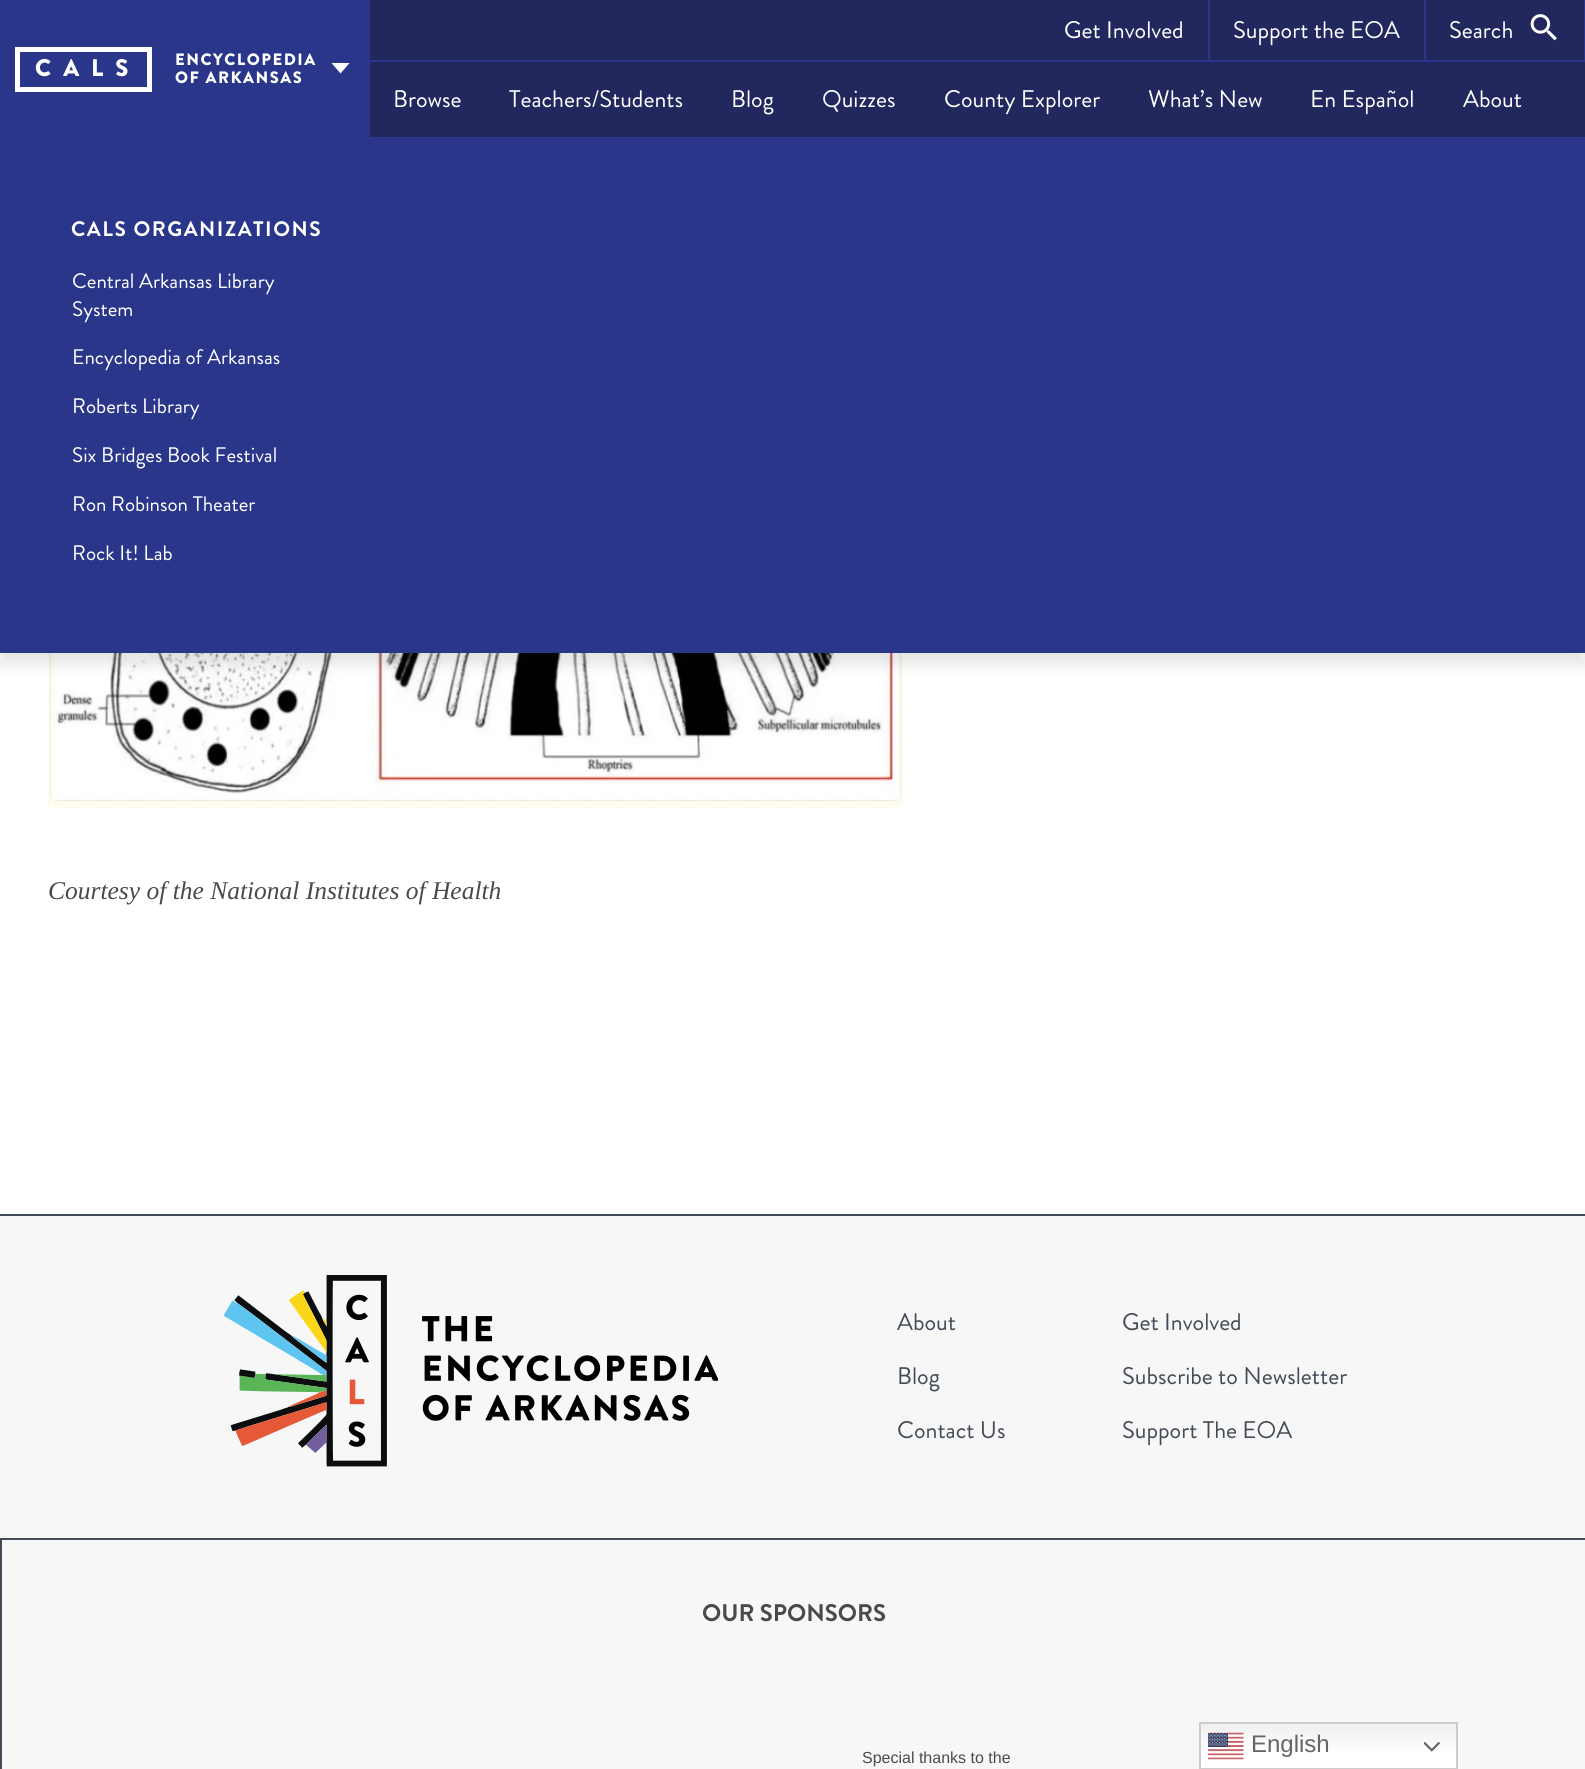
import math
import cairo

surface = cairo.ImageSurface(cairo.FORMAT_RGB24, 1585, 1769)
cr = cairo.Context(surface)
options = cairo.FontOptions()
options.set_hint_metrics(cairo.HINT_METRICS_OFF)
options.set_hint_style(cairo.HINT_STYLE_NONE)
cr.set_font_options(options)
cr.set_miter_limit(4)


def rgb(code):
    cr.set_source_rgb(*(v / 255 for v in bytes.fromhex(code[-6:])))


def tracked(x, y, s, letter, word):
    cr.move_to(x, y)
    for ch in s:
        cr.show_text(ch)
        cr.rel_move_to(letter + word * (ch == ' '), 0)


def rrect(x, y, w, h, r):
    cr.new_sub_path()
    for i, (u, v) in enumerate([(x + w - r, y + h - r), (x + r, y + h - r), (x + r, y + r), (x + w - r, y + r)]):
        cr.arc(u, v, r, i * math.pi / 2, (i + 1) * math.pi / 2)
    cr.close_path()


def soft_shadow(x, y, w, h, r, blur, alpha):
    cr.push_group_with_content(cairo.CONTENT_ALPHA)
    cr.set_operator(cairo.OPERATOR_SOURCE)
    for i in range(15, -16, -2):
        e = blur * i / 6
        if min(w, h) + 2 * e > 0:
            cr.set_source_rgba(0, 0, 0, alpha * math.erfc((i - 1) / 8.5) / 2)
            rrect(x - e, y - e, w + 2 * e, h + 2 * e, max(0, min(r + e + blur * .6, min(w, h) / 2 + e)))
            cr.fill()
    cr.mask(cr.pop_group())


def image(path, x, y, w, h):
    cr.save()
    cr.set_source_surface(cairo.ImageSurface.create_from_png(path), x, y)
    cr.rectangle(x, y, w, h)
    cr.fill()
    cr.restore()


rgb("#ffffff")
cr.paint()
image("img/2.png", 48, 653, 855, 155)
rgb("#0a0a0a")
soft_shadow(-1, 150, 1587, 515, 0, 6, 0.1)
for x, y, w, h, color in [
    (370, 0, 1215, 137, "#22275d"),
    (0, 0, 368, 138, "#2a368a"),
    (369, 60, 1216, 2, "#2a368a"),
    (369, 137, 1216, 1, "#2a368a"),
    (368, 0, 2, 138, "#2a368a"),
]:
    rgb(color)
    cr.rectangle(x, y, w, h)
    cr.fill()
cr.rectangle(17.5, 49.5, 132, 40)
rgb("#ffffff")
cr.set_line_width(5)
cr.stroke()
cr.new_path()
cr.move_to(331.5, 63)
cr.line_to(349.5, 63)
cr.line_to(340.5, 73.5)
cr.close_path()
cr.fill()
for x, y, w, h, color in [
    (0, 138, 1585, 515, "#2a368a"),
    (1208, 0, 2, 60, "#2a368a"),
    (1584, 0, 1, 60, "#2a368a"),
    (1424, 0, 2, 60, "#2a368a"),
]:
    rgb(color)
    cr.rectangle(x, y, w, h)
    cr.fill()
image("img/1.png", 1530, 14, 27, 27)
for x, y, w, h, color in [
    (0, 1216, 1585, 553, "#f7f7f7"),
    (0, 1214, 1585, 2, "#434c56"),
    (0, 1538, 1585, 2, "#434c56"),
]:
    rgb(color)
    cr.rectangle(x, y, w, h)
    cr.fill()
image("img/3.png", 224, 1275, 494, 192)
cr.rectangle(0, 1539, 2, 230)
cr.fill()
gradient = cairo.LinearGradient(1328, 1722, 1328, 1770)
gradient.add_color_stop_rgba(0, 0.937, 0.937, 0.937, 1)
gradient.add_color_stop_rgba(0.7, 1, 1, 1, 1)
cr.set_source(gradient)
cr.rectangle(1201, 1724, 255, 44)
cr.fill()
cr.rectangle(1200, 1723, 257, 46)
rgb("#cccccc")
cr.set_line_width(2)
cr.stroke()
image("img/4.png", 1208, 1732, 36, 28)
image("img/5.png", 1424, 1742, 16, 10)
cr.select_font_face("Brandon Grotesque Black")
cr.set_font_size(24)
rgb("#ffffff")
tracked(35, 76, "CALS", 12, 0)
cr.set_font_size(16.5)
tracked(175, 65, "ENCYCLOPEDIA", 1.5, 0)
tracked(175, 83, "OF ARKANSAS", 1.5, 0)
cr.select_font_face("Brandon Grotesque", cairo.FONT_SLANT_NORMAL, cairo.FONT_WEIGHT_BOLD)
cr.set_font_size(21)
tracked(71, 236, "CALS ORGANIZATIONS", 1.5, 0)
cr.select_font_face("Brandon Grotesque")
for x, y, s in [
    (72, 288, "Central Arkansas Library"),
    (72, 316, "System"),
    (72, 364, "Encyclopedia of Arkansas"),
    (72, 413, "Roberts Library"),
    (72, 462, "Six Bridges Book Festival"),
    (72, 511, "Ron Robinson Theater"),
    (72, 560, "Rock It! Lab"),
]:
    cr.move_to(x, y)
    cr.show_text(s)
cr.set_font_size(24)
for x, y, s in [
    (1064, 38, "Get Involved"),
    (1233, 38, "Support the EOA"),
    (1449, 38, "Search"),
    (393, 107, "Browse"),
    (509, 107, "Teachers/Students"),
    (731, 107, "Blog"),
    (822, 107, "Quizzes"),
    (944, 107, "County Explorer"),
    (1148, 107, "What’s New"),
    (1310, 107, "En Español"),
    (1463, 107, "About"),
]:
    cr.move_to(x, y)
    cr.show_text(s)
cr.select_font_face("Liberation Serif", cairo.FONT_SLANT_ITALIC)
cr.set_font_size(25.5)
rgb("#4a4a4a")
cr.move_to(48, 899)
cr.show_text("Courtesy of the National Institutes of Health")
cr.select_font_face("Brandon Grotesque")
cr.set_font_size(24)
rgb("#434c56")
for x, y, s in [
    (897, 1330, "About"),
    (1122, 1330, "Get Involved"),
    (897, 1384, "Blog"),
    (1122, 1384, "Subscribe to Newsletter"),
    (897, 1438, "Contact Us"),
    (1122, 1438, "Support The EOA"),
]:
    cr.move_to(x, y)
    cr.show_text(s)
cr.select_font_face("Brandon Grotesque", cairo.FONT_SLANT_NORMAL, cairo.FONT_WEIGHT_BOLD)
rgb("#4a4a4a")
cr.move_to(702, 1621)
cr.show_text("OUR SPONSORS")
cr.select_font_face("Liberation Sans")
cr.set_font_size(16)
cr.move_to(862, 1763)
cr.show_text("Special thanks to the")
cr.set_font_size(24)
rgb("#666666")
cr.move_to(1251, 1752)
cr.show_text("English")
surface.write_to_png("page.png")
